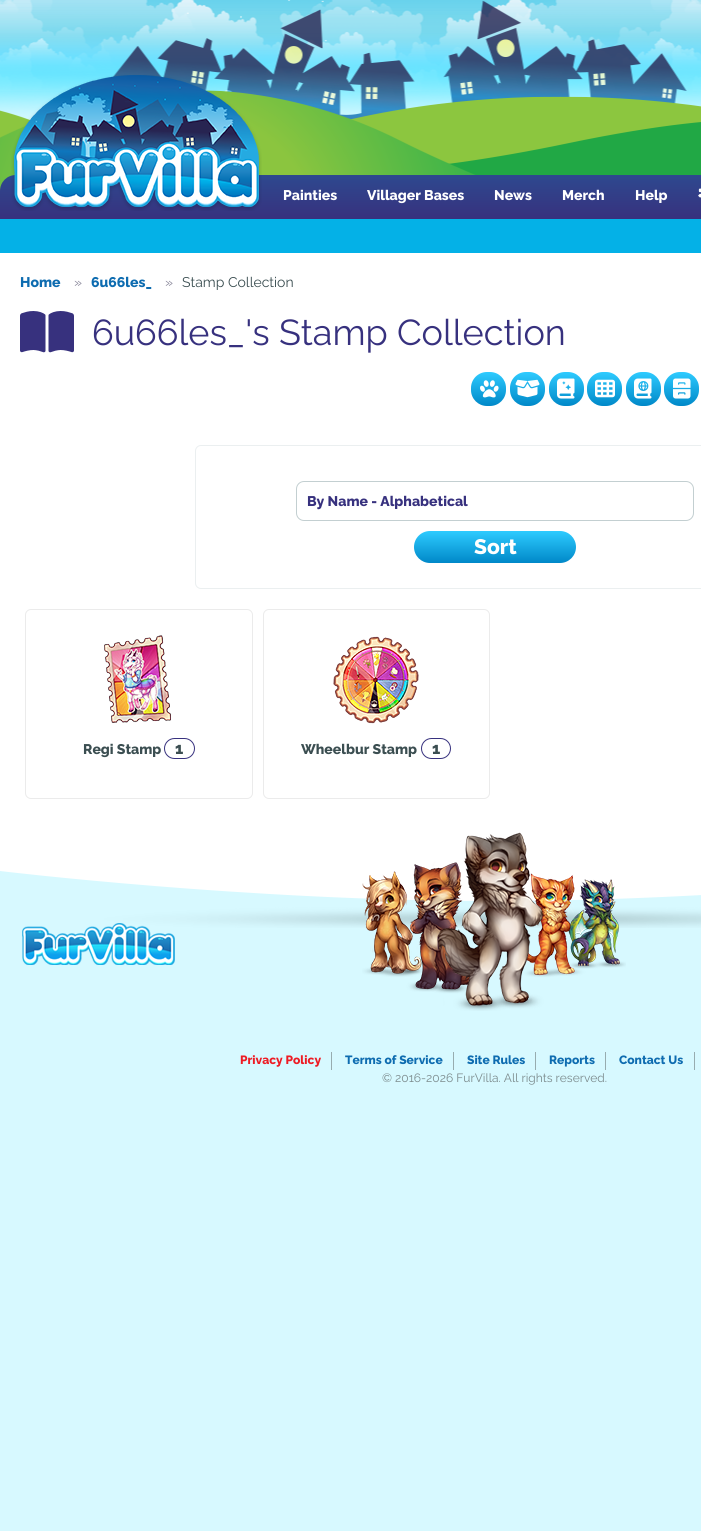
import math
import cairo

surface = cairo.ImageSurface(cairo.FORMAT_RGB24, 701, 1531)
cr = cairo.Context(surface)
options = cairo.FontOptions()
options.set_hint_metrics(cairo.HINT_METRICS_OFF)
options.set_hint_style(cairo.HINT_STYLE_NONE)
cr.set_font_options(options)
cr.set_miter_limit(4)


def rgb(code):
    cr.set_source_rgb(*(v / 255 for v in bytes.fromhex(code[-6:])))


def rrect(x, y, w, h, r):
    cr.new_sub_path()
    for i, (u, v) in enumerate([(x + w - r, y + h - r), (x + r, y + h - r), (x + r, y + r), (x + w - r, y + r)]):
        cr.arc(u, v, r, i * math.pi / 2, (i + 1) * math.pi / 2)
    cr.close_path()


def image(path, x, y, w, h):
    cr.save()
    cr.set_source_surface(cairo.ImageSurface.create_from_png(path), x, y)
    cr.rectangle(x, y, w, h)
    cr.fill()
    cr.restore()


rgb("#d7f9ff")
cr.paint()
image("img/1.png", 0, 0, 701, 191)
gradient = cairo.LinearGradient(495, 175, 495, 219)
gradient.add_color_stop_rgba(0, 0.18, 0.286, 0.561, 1)
gradient.add_color_stop_rgba(1, 0.216, 0.192, 0.494, 1)
cr.set_source(gradient)
cr.new_path()
cr.move_to(16, 175)
cr.line_to(701, 175)
cr.curve_to(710, 175, 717, 182, 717, 191)
cr.line_to(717, 219)
cr.line_to(0, 219)
cr.line_to(0, 191)
cr.curve_to(0, 182, 7, 175, 16, 175)
cr.close_path()
cr.fill()
image("img/2.png", 11, 75, 251, 136)
image("img/3.png", 698, 188, 3, 10)
rgb("#04b1e7")
cr.rectangle(0, 219, 701, 34)
cr.fill()
rgb("#ffffff")
cr.rectangle(0, 253, 701, 616)
cr.fill()
image("img/4.png", 20, 311, 54, 42)
gradient = cairo.LinearGradient(489, 372, 489, 406)
gradient.add_color_stop_rgba(0, 0.18, 0.796, 1, 1)
gradient.add_color_stop_rgba(1, 0, 0.533, 0.784, 1)
cr.set_source(gradient)
rrect(471, 372, 35, 34, 16)
cr.fill()
image("img/5.png", 480, 380, 19, 18)
gradient = cairo.LinearGradient(528, 372, 528, 406)
gradient.add_color_stop_rgba(0, 0.18, 0.796, 1, 1)
gradient.add_color_stop_rgba(1, 0, 0.533, 0.784, 1)
cr.set_source(gradient)
rrect(510, 372, 35, 34, 16)
cr.fill()
image("img/6.png", 515, 379, 25, 19)
gradient = cairo.LinearGradient(567, 372, 567, 406)
gradient.add_color_stop_rgba(0, 0.18, 0.796, 1, 1)
gradient.add_color_stop_rgba(1, 0, 0.533, 0.784, 1)
cr.set_source(gradient)
rrect(549, 372, 35, 34, 16)
cr.fill()
image("img/7.png", 557, 378, 18, 21)
gradient = cairo.LinearGradient(605, 372, 605, 406)
gradient.add_color_stop_rgba(0, 0.18, 0.796, 1, 1)
gradient.add_color_stop_rgba(1, 0, 0.533, 0.784, 1)
cr.set_source(gradient)
rrect(587, 372, 35, 34, 16)
cr.fill()
image("img/8.png", 595, 379, 20, 19)
gradient = cairo.LinearGradient(644, 372, 644, 406)
gradient.add_color_stop_rgba(0, 0.18, 0.796, 1, 1)
gradient.add_color_stop_rgba(1, 0, 0.533, 0.784, 1)
cr.set_source(gradient)
rrect(626, 372, 35, 34, 16)
cr.fill()
image("img/9.png", 634, 378, 18, 21)
gradient = cairo.LinearGradient(682, 372, 682, 406)
gradient.add_color_stop_rgba(0, 0.18, 0.796, 1, 1)
gradient.add_color_stop_rgba(1, 0, 0.533, 0.784, 1)
cr.set_source(gradient)
rrect(664, 372, 35, 34, 16)
cr.fill()
image("img/10.png", 673, 378, 18, 21)
rrect(195.5, 445.5, 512, 143, 5.5)
rgb("#ebeff0")
cr.set_line_width(1)
cr.stroke()
rrect(296.5, 481.5, 397, 39, 7.5)
rgb("#c3cfd1")
cr.stroke()
gradient = cairo.LinearGradient(495, 531, 495, 563)
gradient.add_color_stop_rgba(0, 0.18, 0.796, 1, 1)
gradient.add_color_stop_rgba(1, 0, 0.533, 0.784, 1)
cr.set_source(gradient)
rrect(414, 531, 162, 32, 16)
cr.fill()
rrect(25.5, 609.5, 227, 189, 5.5)
rgb("#ebebeb")
cr.stroke()
image("img/11.png", 104, 635, 67, 88)
rrect(164.5, 738.5, 30, 20, 10)
rgb("#37317e")
cr.stroke()
rrect(263.5, 609.5, 226, 189, 5.5)
rgb("#ebebeb")
cr.stroke()
image("img/12.png", 333, 636, 86, 88)
rrect(421.5, 738.5, 29, 20, 10)
rgb("#37317e")
cr.stroke()
image("img/13.png", 0, 869, 701, 59)
image("img/14.png", 22, 923, 153, 42)
image("img/15.png", 362, 832, 264, 179)
for x, y, w, h, color in [
    (331, 1052, 1, 18, "#97acaf"),
    (453, 1052, 1, 18, "#97acaf"),
    (535, 1052, 1, 18, "#97acaf"),
    (605, 1052, 1, 18, "#97acaf"),
    (694, 1052, 1, 18, "#97acaf"),
]:
    rgb(color)
    cr.rectangle(x, y, w, h)
    cr.fill()
cr.select_font_face("Raleway ExtraBold")
cr.set_font_size(14)
rgb("#ffffff")
for x, y, s in [
    (283, 200, "Painties"),
    (367, 200, "Villager Bases"),
    (494, 200, "News"),
    (562, 200, "Merch"),
    (635, 200, "Help"),
]:
    cr.move_to(x, y)
    cr.show_text(s)
rgb("#0e6cb0")
cr.move_to(20, 287)
cr.show_text("Home")
cr.select_font_face("Raleway")
rgb("#838195")
cr.move_to(74, 287)
cr.show_text("»")
cr.select_font_face("Raleway ExtraBold")
rgb("#0e6cb0")
cr.move_to(91, 287)
cr.show_text("6u66les_")
cr.select_font_face("Raleway")
rgb("#838195")
cr.move_to(165, 287)
cr.show_text("»")
rgb("#3b4e51")
cr.move_to(182, 287)
cr.show_text("Stamp Collection")
cr.set_font_size(36)
rgb("#37317e")
cr.move_to(92, 345)
cr.show_text("6u66les_'s Stamp Collection")
cr.select_font_face("Raleway ExtraBold")
cr.set_font_size(14)
cr.move_to(307, 506)
cr.show_text("By Name - Alphabetical")
cr.set_font_size(21)
rgb("#ffffff")
cr.move_to(474, 554)
cr.show_text("Sort")
cr.set_font_size(14)
rgb("#3b4e51")
cr.move_to(83, 754)
cr.show_text("Regi Stamp")
cr.set_font_size(16)
cr.move_to(175, 754)
cr.show_text("1")
cr.set_font_size(14)
cr.move_to(301, 754)
cr.show_text("Wheelbur Stamp")
cr.set_font_size(16)
cr.move_to(432, 754)
cr.show_text("1")
cr.set_font_size(12)
rgb("#ed1c24")
cr.move_to(240, 1064)
cr.show_text("Privacy Policy")
rgb("#0e6cb0")
for x, y, s in [
    (345, 1064, "Terms of Service"),
    (467, 1064, "Site Rules"),
    (549, 1064, "Reports"),
    (619, 1064, "Contact Us"),
]:
    cr.move_to(x, y)
    cr.show_text(s)
cr.select_font_face("Raleway")
rgb("#7b8a8c")
cr.move_to(382, 1082)
cr.show_text("© 2016-2026 FurVilla. All rights reserved.")
surface.write_to_png("page.png")
